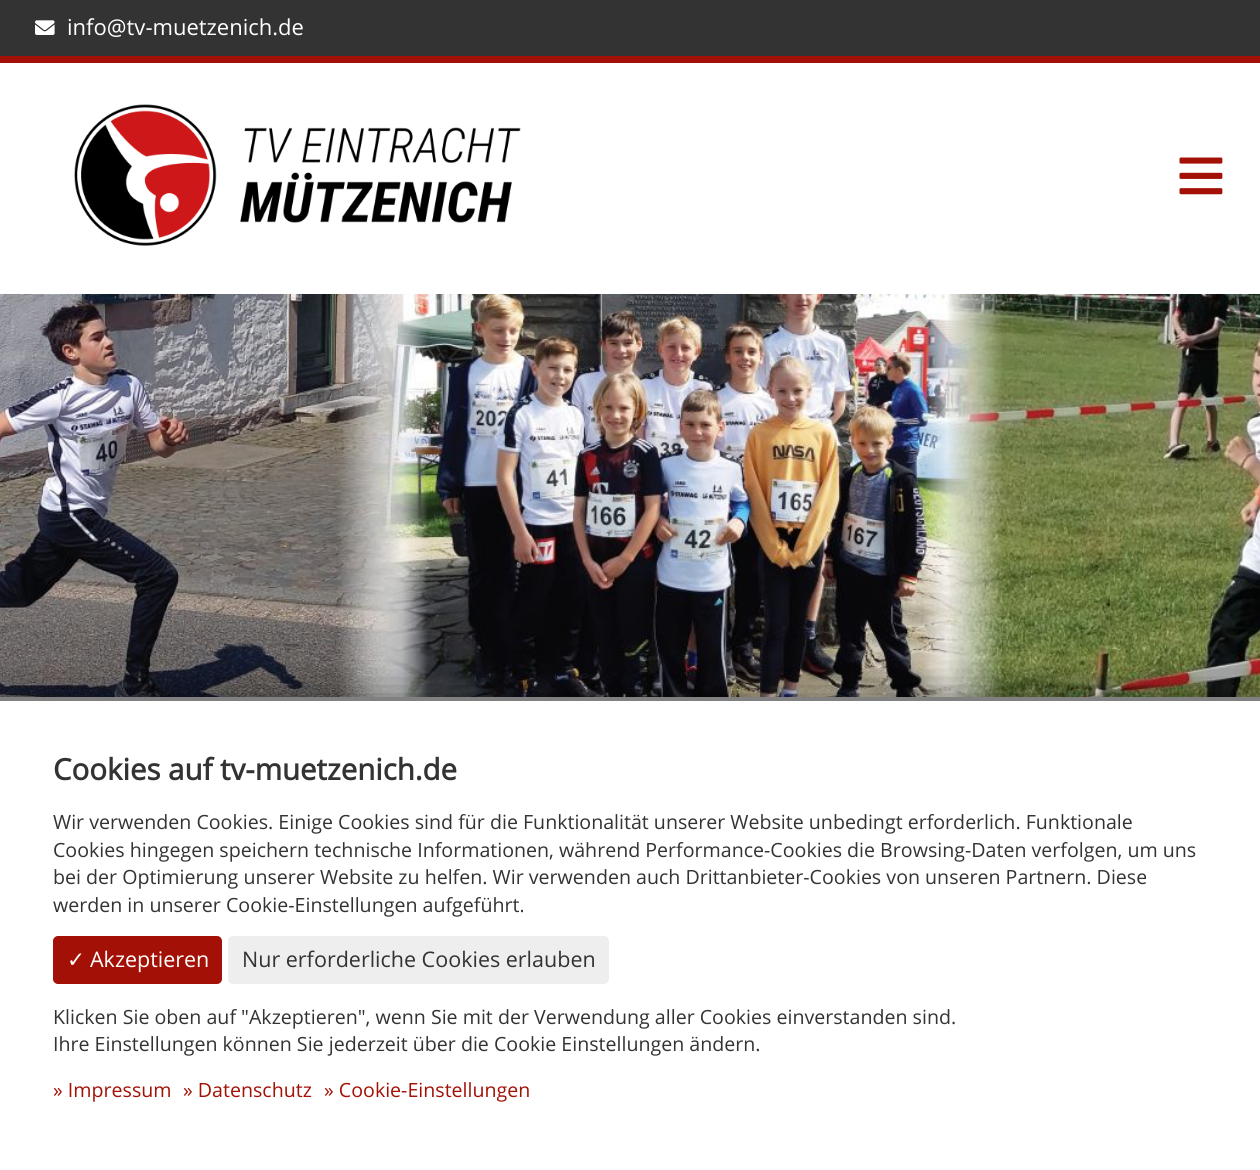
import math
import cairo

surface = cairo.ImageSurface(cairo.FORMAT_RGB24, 1260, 1170)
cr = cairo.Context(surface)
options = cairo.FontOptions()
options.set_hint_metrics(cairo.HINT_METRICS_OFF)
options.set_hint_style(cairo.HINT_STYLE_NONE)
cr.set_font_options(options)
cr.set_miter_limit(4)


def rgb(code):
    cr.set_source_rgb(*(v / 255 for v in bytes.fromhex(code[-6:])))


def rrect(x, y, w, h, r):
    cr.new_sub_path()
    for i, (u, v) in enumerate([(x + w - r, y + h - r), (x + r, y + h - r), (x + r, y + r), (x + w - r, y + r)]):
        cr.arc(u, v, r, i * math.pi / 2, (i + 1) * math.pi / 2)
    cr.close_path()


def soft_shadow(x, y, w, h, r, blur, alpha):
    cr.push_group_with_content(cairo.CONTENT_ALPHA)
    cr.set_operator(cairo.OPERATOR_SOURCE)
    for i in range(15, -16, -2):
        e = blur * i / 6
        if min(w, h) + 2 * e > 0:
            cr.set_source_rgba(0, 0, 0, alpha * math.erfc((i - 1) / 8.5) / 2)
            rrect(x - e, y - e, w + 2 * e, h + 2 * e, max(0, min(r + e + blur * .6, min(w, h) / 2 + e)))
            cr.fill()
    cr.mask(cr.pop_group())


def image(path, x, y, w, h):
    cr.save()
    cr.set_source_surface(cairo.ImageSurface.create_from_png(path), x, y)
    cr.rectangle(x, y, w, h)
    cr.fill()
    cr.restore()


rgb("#ffffff")
cr.paint()
rgb("#333333")
cr.rectangle(0, 0, 1260, 56)
cr.fill()
rgb("#a31106")
cr.rectangle(0, 56, 1260, 7)
cr.fill()
image("img/1.png", 35, 20, 20, 15)
image("img/2.png", 74, 104, 447, 142)
image("img/3.png", 1179, 157, 44, 38)
image("img/4.png", 0, 294, 1260, 403)
rgb("#000000")
soft_shadow(0, 697, 1260, 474, 0, 24.5, 0.5)
rgb("#ffffff")
cr.rectangle(0, 701, 1260, 469)
cr.fill()
rgb("#808080")
cr.rectangle(0, 697, 1260, 4)
cr.fill()
rgb("#a31106")
rrect(54, 937, 167, 46, 4)
cr.fill_preserve()
cr.stroke()
rgb("#eeeeee")
rrect(229, 937, 379, 46, 4)
cr.fill_preserve()
cr.stroke()
cr.select_font_face("Open Sans")
cr.set_font_size(22)
rgb("#ffffff")
cr.move_to(67, 35)
cr.show_text("info@tv-muetzenich.de")
cr.select_font_face("Open Sans", cairo.FONT_SLANT_NORMAL, cairo.FONT_WEIGHT_BOLD)
cr.set_font_size(29.4)
rgb("#333333")
cr.move_to(53, 780)
cr.show_text("Cookies auf tv-muetzenich.de")
cr.select_font_face("Open Sans")
cr.set_font_size(19.6)
for x, y, s in [
    (53, 829, "Wir verwenden Cookies. Einige Cookies sind für die Funktionalität unserer Website unbedingt erforderlich. Funktionale"),
    (53, 857, "Cookies hingegen speichern technische Informationen, während Performance-Cookies die Browsing-Daten verfolgen, um uns"),
    (53, 884, "bei der Optimierung unserer Website zu helfen. Wir verwenden auch Drittanbieter-Cookies von unseren Partnern. Diese"),
    (53, 912, "werden in unserer Cookie-Einstellungen aufgeführt."),
]:
    cr.move_to(x, y)
    cr.show_text(s)
cr.select_font_face("DejaVu Sans")
cr.set_font_size(21.5)
rgb("#ffffff")
cr.move_to(67, 967)
cr.show_text("✓")
cr.select_font_face("Open Sans")
cr.move_to(90, 967)
cr.show_text("Akzeptieren")
rgb("#333333")
cr.move_to(242, 967)
cr.show_text("Nur erforderliche Cookies erlauben")
cr.set_font_size(19.6)
cr.move_to(53, 1024)
cr.show_text("Klicken Sie oben auf \"Akzeptieren\", wenn Sie mit der Verwendung aller Cookies einverstanden sind.")
cr.move_to(53, 1051)
cr.show_text("Ihre Einstellungen können Sie jederzeit über die Cookie Einstellungen ändern.")
rgb("#a31106")
for x, y, s in [
    (53, 1097, "» Impressum"),
    (183, 1097, "» Datenschutz"),
    (324, 1097, "» Cookie-Einstellungen"),
]:
    cr.move_to(x, y)
    cr.show_text(s)
surface.write_to_png("page.png")
